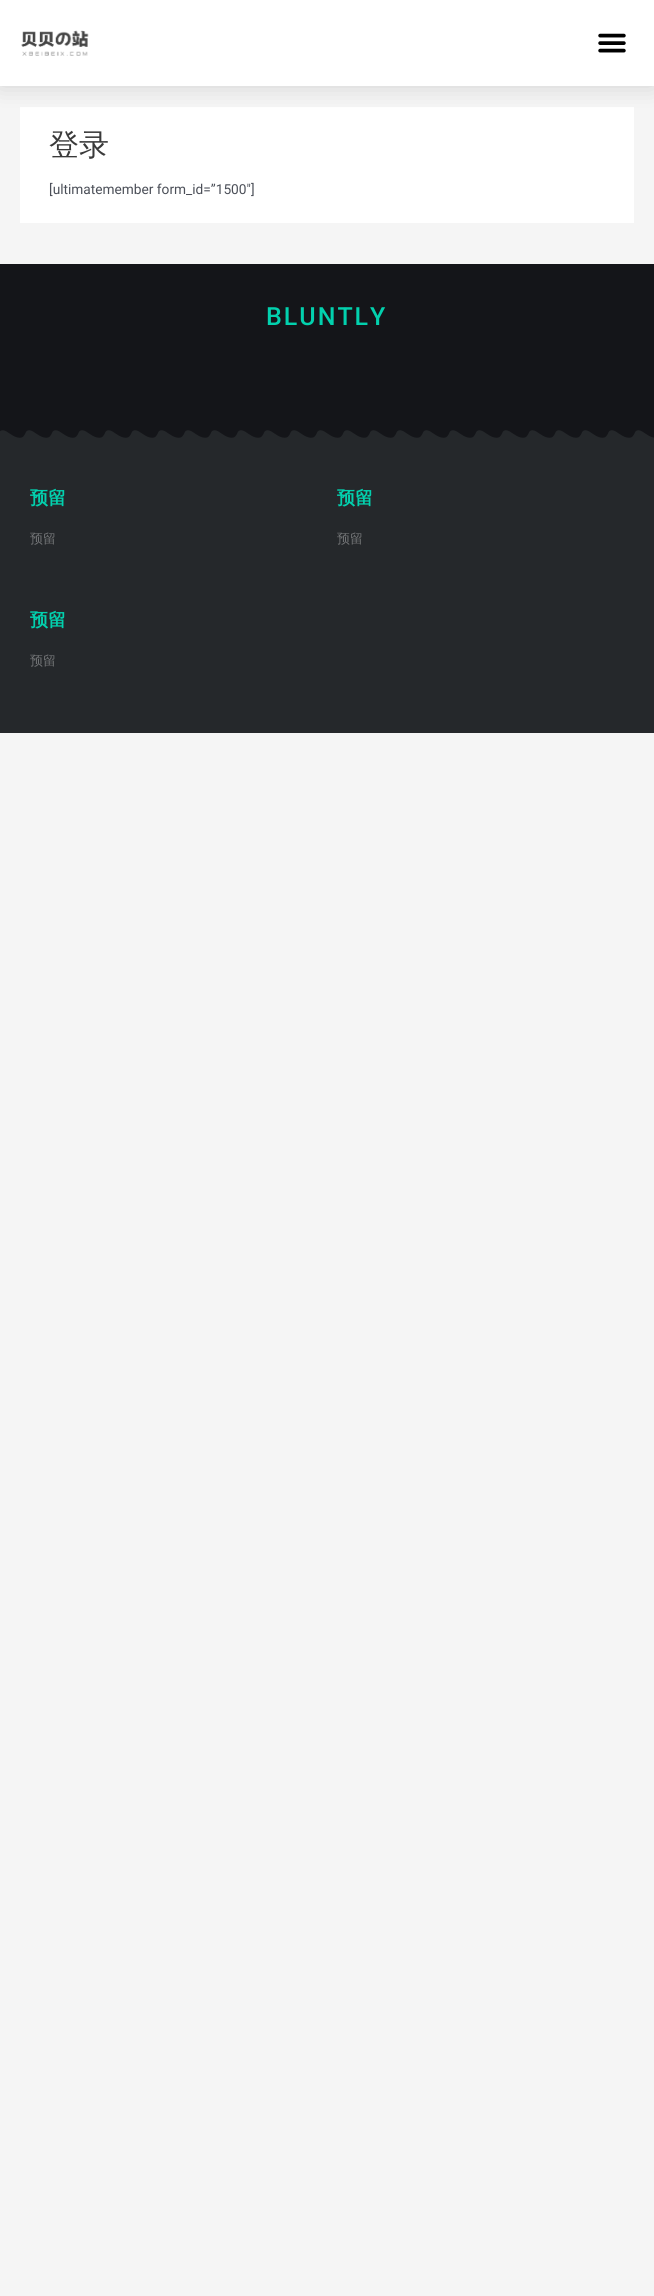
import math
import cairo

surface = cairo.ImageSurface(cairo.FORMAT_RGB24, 654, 2296)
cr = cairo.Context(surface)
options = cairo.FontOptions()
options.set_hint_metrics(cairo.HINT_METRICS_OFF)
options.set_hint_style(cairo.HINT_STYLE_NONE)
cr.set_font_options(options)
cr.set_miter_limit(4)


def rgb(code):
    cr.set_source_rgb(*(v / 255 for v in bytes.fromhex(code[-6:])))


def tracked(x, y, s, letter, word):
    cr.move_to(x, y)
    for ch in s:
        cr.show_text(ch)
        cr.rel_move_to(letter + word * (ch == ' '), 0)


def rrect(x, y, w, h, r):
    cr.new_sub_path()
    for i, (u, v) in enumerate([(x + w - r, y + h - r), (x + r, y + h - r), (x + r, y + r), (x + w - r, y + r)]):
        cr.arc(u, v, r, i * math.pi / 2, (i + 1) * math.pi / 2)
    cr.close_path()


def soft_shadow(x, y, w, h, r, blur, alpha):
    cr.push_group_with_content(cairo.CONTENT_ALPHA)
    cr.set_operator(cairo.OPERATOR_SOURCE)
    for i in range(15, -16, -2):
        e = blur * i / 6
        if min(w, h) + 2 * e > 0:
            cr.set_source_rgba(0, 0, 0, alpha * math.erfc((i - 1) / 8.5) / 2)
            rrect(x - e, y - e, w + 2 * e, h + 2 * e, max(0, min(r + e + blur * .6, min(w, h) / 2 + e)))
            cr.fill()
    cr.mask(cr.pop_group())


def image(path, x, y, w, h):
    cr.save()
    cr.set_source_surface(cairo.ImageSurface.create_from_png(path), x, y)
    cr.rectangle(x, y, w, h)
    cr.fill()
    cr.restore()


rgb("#f5f5f5")
cr.paint()
rgb("#ffffff")
cr.rectangle(20, 107, 614, 116)
cr.fill()
rgb("#000000")
soft_shadow(0, 0, 654, 86, 0, 12, 0.15)
rgb("#ffffff")
cr.rectangle(0, 0, 654, 86)
cr.fill()
image("img/1.png", 21, 30, 68, 26)
image("img/2.png", 598, 33, 28, 20)
rgb("#141519")
cr.rectangle(0, 264, 654, 165)
cr.fill()
rgb("#25282b")
cr.rectangle(0, 430, 654, 303)
cr.fill()
image("img/3.png", 0, 429, 654, 9)
cr.select_font_face("WenQuanYi Zen Hei Medium")
cr.set_font_size(30)
rgb("#3a3a3a")
cr.move_to(49, 155)
cr.show_text("登录")
cr.select_font_face("Roboto")
cr.set_font_size(13.7)
rgb("#4b4f58")
cr.move_to(49, 194)
cr.show_text("[ultimatemember form_id=”1500″]")
cr.select_font_face("Roboto Medium")
cr.set_font_size(25)
rgb("#02d1ae")
tracked(266, 325, "BLUNTLY", 2, 0)
cr.select_font_face("WenQuanYi Zen Hei", cairo.FONT_SLANT_NORMAL, cairo.FONT_WEIGHT_BOLD)
cr.set_font_size(18)
cr.move_to(30, 504)
cr.show_text("预留")
cr.select_font_face("WenQuanYi Zen Hei Medium")
cr.set_font_size(13)
rgb("#737577")
cr.move_to(30, 543)
cr.show_text("预留")
cr.select_font_face("WenQuanYi Zen Hei", cairo.FONT_SLANT_NORMAL, cairo.FONT_WEIGHT_BOLD)
cr.set_font_size(18)
rgb("#02d1ae")
cr.move_to(337, 504)
cr.show_text("预留")
cr.select_font_face("WenQuanYi Zen Hei Medium")
cr.set_font_size(13)
rgb("#737577")
cr.move_to(337, 543)
cr.show_text("预留")
cr.select_font_face("WenQuanYi Zen Hei", cairo.FONT_SLANT_NORMAL, cairo.FONT_WEIGHT_BOLD)
cr.set_font_size(18)
rgb("#02d1ae")
cr.move_to(30, 626)
cr.show_text("预留")
cr.select_font_face("WenQuanYi Zen Hei Medium")
cr.set_font_size(13)
rgb("#737577")
cr.move_to(30, 665)
cr.show_text("预留")
surface.write_to_png("page.png")
